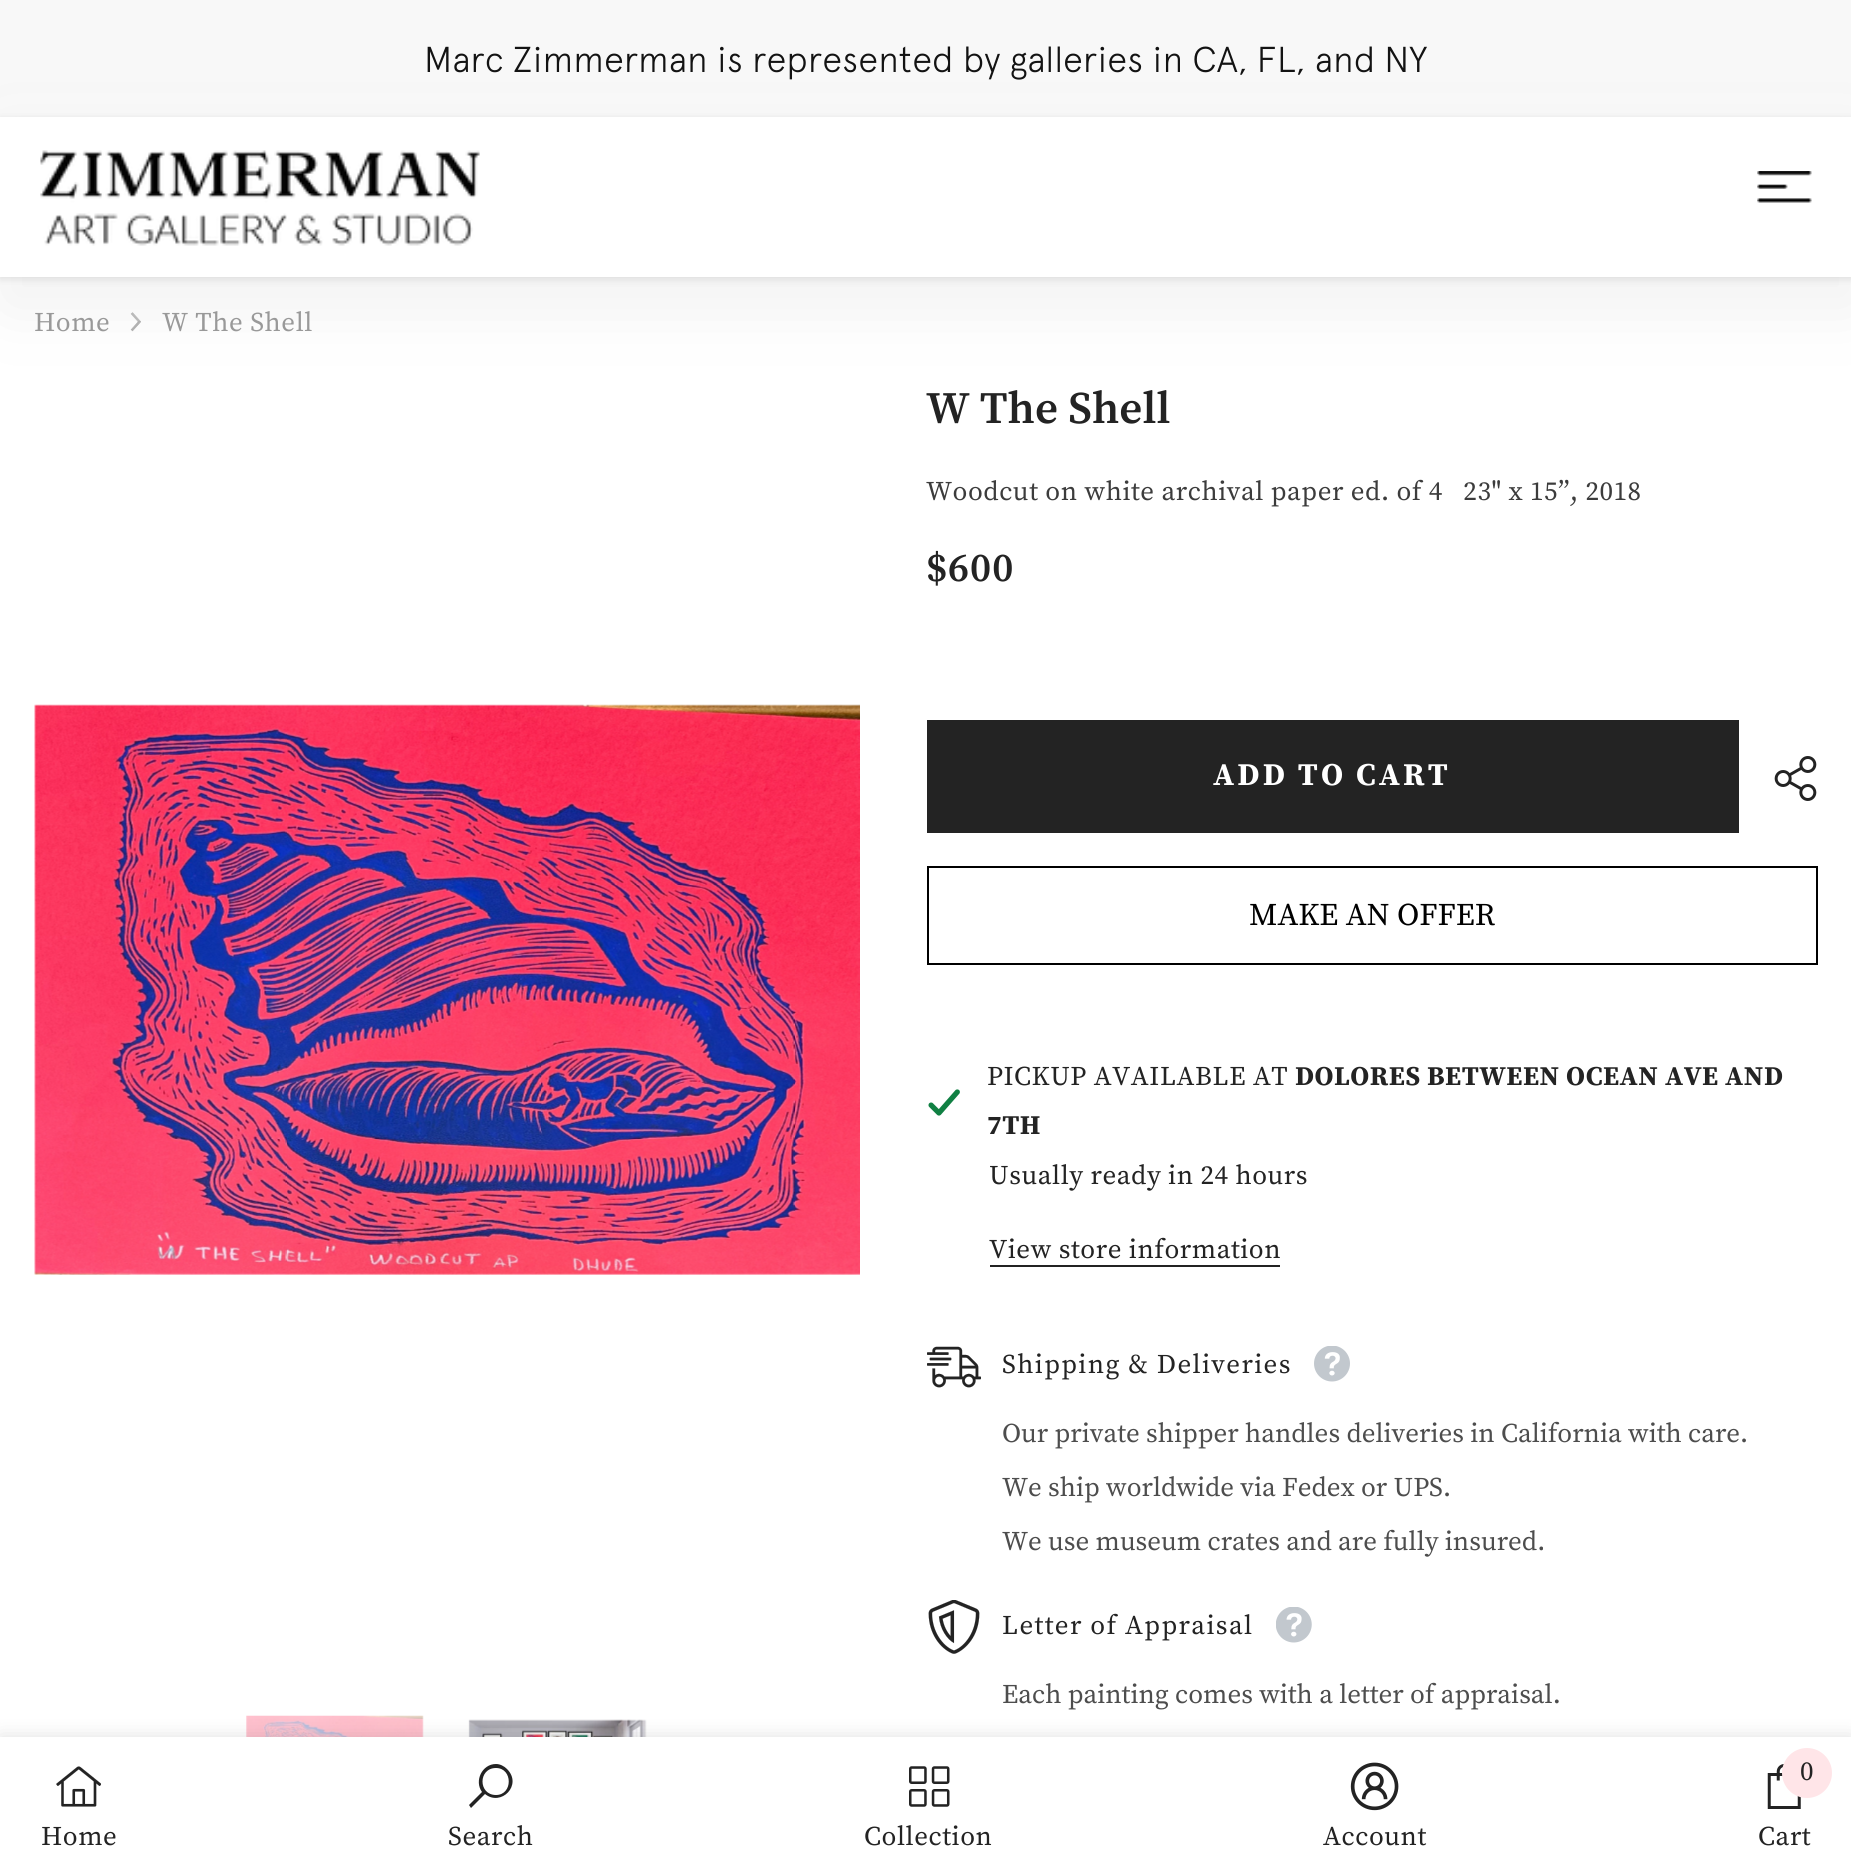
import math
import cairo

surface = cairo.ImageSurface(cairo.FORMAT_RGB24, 1851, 1876)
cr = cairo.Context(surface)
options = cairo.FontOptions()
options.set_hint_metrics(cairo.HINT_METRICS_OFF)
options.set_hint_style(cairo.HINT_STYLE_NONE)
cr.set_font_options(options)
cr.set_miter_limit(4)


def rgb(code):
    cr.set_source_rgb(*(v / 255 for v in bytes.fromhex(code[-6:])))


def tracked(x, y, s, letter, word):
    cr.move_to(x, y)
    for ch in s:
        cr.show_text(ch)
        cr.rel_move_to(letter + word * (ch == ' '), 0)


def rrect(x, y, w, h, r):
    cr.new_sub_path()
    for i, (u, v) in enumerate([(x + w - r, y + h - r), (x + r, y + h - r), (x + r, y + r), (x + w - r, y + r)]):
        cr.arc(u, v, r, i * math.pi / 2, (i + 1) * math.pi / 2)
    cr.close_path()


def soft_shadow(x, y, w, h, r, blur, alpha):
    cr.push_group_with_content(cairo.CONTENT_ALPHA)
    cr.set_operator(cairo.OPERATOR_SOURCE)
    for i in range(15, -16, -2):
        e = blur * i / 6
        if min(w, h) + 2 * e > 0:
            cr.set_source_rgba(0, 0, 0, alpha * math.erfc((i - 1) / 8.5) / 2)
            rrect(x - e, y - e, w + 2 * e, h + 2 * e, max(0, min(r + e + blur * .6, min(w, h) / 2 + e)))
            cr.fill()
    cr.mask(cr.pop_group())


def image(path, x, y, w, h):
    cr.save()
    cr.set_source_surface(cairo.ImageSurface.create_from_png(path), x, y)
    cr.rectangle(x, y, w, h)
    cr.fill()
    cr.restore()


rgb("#ffffff")
cr.paint()
rgb("#f8f8f8")
cr.rectangle(0, 0, 1851, 117)
cr.fill()
image("img/3.png", 130, 312, 11, 20)
rgb("#f0f0f0")
soft_shadow(5, 144, 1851, 160, 0, 34, 1)
rgb("#000000")
soft_shadow(0, 119, 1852, 160, 0, 3.5, 0.1)
rgb("#ffffff")
cr.rectangle(0, 117, 1851, 160)
cr.fill()
image("img/1.png", 40, 150, 440, 96)
image("img/2.png", 1757, 171, 55, 32)
image("img/4.png", 34, 704, 826, 571)
image("img/5.png", 246, 1715, 178, 22)
image("img/6.png", 468, 1719, 179, 18)
rgb("#232323")
cr.rectangle(927, 720, 812, 113)
cr.fill()
image("img/7.png", 1774, 756, 43, 45)
cr.rectangle(928, 867, 889, 97)
rgb("#000000")
cr.stroke()
image("img/8.png", 928, 1089, 32, 27)
rgb("#232323")
cr.rectangle(990, 1265, 290, 2)
cr.fill()
image("img/9.png", 927, 1346, 54, 42)
image("img/10.png", 1314, 1346, 36, 36)
image("img/11.png", 928, 1600, 52, 54)
image("img/12.png", 1276, 1607, 36, 36)
rgb("#000000")
soft_shadow(0, 1737, 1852, 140, 0, 10, 0.12)
rgb("#ffffff")
cr.rectangle(0, 1737, 1851, 139)
cr.fill()
image("img/13.png", 56, 1766, 45, 41)
rgb("#232323")
cr.new_path()
cr.move_to(496, 1764)
cr.curve_to(482, 1764, 474, 1781, 482, 1792)
cr.line_to(469, 1805)
cr.line_to(471, 1808)
cr.line_to(485, 1794)
cr.curve_to(501, 1807, 523, 1785, 507, 1769)
cr.curve_to(504, 1766, 500, 1764, 496, 1764)
cr.close_path()
cr.move_to(496, 1768)
cr.curve_to(513, 1768, 513, 1795, 496, 1795)
cr.curve_to(478, 1795, 478, 1768, 496, 1768)
cr.close_path()
cr.fill()
image("img/14.png", 909, 1766, 41, 41)
image("img/15.png", 1350, 1762, 49, 49)
image("img/16.png", 1767, 1764, 34, 45)
rgb("#ffe5e8")
cr.arc(1807, 1773, 25, 0, 2 * math.pi)
cr.fill()
cr.select_font_face("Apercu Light")
cr.set_font_size(36)
rgb("#131313")
cr.move_to(424, 72)
cr.show_text("Marc Zimmerman is represented by galleries in CA, FL, and NY")
cr.select_font_face("Source Serif Pro")
cr.set_font_size(27)
rgb("#999999")
tracked(34, 331, "Home", 0.55, 0)
tracked(162, 331, "W The Shell", 0.55, 0)
cr.select_font_face("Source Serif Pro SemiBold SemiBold")
cr.set_font_size(45)
rgb("#232323")
cr.move_to(926, 423)
cr.show_text("W The Shell")
cr.select_font_face("Source Serif Pro")
cr.set_font_size(27)
rgb("#3c3c3c")
tracked(926, 500, "Woodcut on white archival paper ed. of 4   23\" x 15”, 2018", 0.55, 0)
cr.select_font_face("Source Serif Pro SemiBold SemiBold")
cr.set_font_size(40.5)
rgb("#232323")
tracked(926, 581, "$600", 1, 0)
cr.select_font_face("Source Serif Pro", cairo.FONT_SLANT_NORMAL, cairo.FONT_WEIGHT_BOLD)
cr.set_font_size(31.5)
rgb("#ffffff")
tracked(1213, 785, "ADD TO CART", 3.1, 0)
cr.select_font_face("Source Serif Pro")
rgb("#000000")
cr.move_to(1249, 925)
cr.show_text("MAKE AN OFFER")
cr.set_font_size(27)
rgb("#232323")
tracked(987, 1085, "PICKUP AVAILABLE AT", 0.55, 0)
cr.select_font_face("Source Serif Pro", cairo.FONT_SLANT_NORMAL, cairo.FONT_WEIGHT_BOLD)
tracked(1295, 1085, "DOLORES BETWEEN OCEAN AVE AND", 0.55, 0)
tracked(987, 1134, "7TH", 0.55, 0)
cr.select_font_face("Source Serif Pro")
tracked(989, 1184, "Usually ready in 24 hours", 0.55, 0)
tracked(989, 1258, "View store information", 0.55, 0)
tracked(1002, 1373, "Shipping & Deliveries", 1.35, 0)
rgb("#4d4d4d")
for x, y, s in [
    (1002, 1442, "Our private shipper handles deliveries in California with care."),
    (1002, 1496, "We ship worldwide via Fedex or UPS."),
    (1002, 1550, "We use museum crates and are fully insured."),
]:
    cr.move_to(x, y)
    cr.show_text(s)
rgb("#232323")
tracked(1002, 1634, "Letter of Appraisal", 1.35, 0)
rgb("#4d4d4d")
cr.move_to(1002, 1703)
cr.show_text("Each painting comes with a letter of appraisal.")
rgb("#232323")
for x, y, s in [
    (41, 1845, "Home"),
    (448, 1845, "Search"),
    (864, 1845, "Collection"),
    (1323, 1845, "Account"),
    (1800, 1780, "0"),
    (1758, 1845, "Cart"),
]:
    tracked(x, y, s, 0.55, 0)
surface.write_to_png("page.png")
